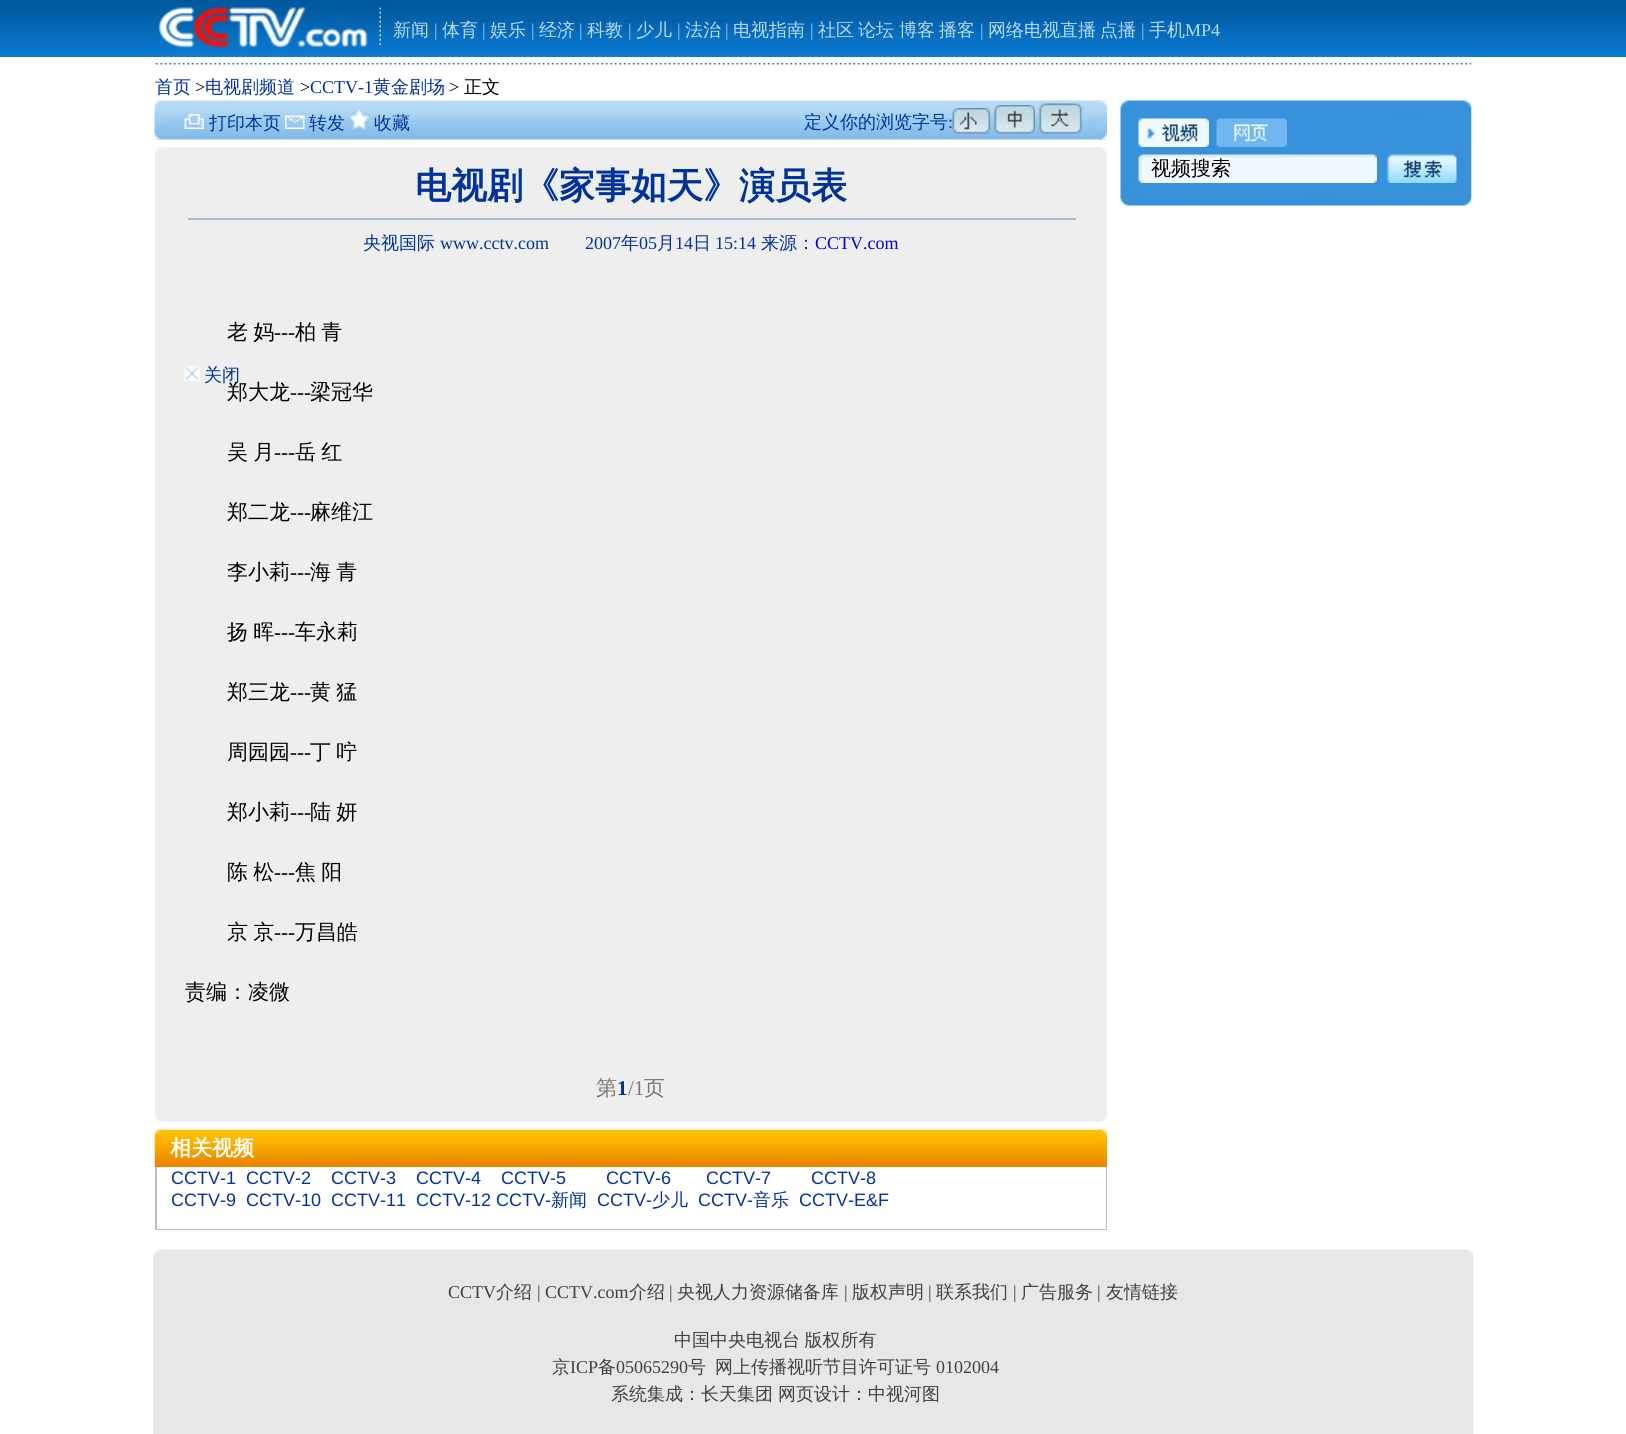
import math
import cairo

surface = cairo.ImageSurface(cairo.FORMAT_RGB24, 1626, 1434)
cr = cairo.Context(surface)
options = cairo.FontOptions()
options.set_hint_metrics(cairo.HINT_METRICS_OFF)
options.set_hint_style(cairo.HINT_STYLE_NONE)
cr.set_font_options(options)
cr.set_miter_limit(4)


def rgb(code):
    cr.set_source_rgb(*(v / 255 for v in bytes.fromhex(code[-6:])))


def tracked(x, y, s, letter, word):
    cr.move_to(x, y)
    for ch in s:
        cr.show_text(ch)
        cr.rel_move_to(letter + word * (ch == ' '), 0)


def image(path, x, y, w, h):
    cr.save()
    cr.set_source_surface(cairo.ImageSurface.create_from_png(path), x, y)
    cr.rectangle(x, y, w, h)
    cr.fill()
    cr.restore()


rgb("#ffffff")
cr.paint()
image("img/1.png", 0, 0, 1626, 57)
image("img/2.png", 158, 0, 210, 49)
image("img/3.png", 379, 7, 2, 38)
image("img/4.png", 155, 63, 1317, 2)
image("img/5.png", 154, 100, 953, 40)
image("img/6.png", 154, 100, 8, 40)
image("img/7.png", 184, 114, 20, 15)
image("img/8.png", 285, 115, 20, 14)
image("img/9.png", 349, 109, 20, 20)
rgb("#eeeeee")
cr.rectangle(155, 147, 952, 975)
cr.fill()
image("img/10.png", 184, 366, 16, 15)
image("img/11.png", 1099, 100, 8, 40)
image("img/12.png", 952, 108, 38, 26)
image("img/13.png", 994, 105, 41, 29)
image("img/14.png", 1039, 103, 43, 31)
image("img/15.png", 154, 147, 11, 10)
image("img/16.png", 1101, 147, 6, 10)
rgb("#a1bed4")
cr.rectangle(188, 218, 888, 2)
cr.fill()
image("img/17.png", 154, 1112, 11, 10)
image("img/18.png", 1100, 1112, 7, 10)
image("img/19.png", 154, 1129, 953, 38)
image("img/20.png", 1099, 1129, 8, 13)
image("img/21.png", 154, 1129, 8, 38)
for x, y, w, h, color in [
    (1106, 1167, 1, 63, "#bcbcbc"),
    (155, 1229, 952, 1, "#bcbcbc"),
    (155, 1167, 2, 63, "#bcbcbc"),
]:
    rgb(color)
    cr.rectangle(x, y, w, h)
    cr.fill()
image("img/22.png", 1120, 100, 352, 106)
image("img/23.png", 1138, 118, 71, 29)
image("img/24.png", 1216, 118, 71, 29)
image("img/25.png", 1138, 154, 239, 29)
image("img/26.png", 1387, 154, 70, 29)
image("img/27.png", 153, 1249, 1320, 185)
cr.select_font_face("WenQuanYi Zen Hei Medium")
cr.set_font_size(18)
rgb("#b8dbf7")
cr.move_to(393, 36)
cr.show_text("新闻")
cr.select_font_face("Liberation Serif")
rgb("#9acaf0")
cr.move_to(434, 36)
cr.show_text("|")
cr.select_font_face("WenQuanYi Zen Hei Medium")
rgb("#b8dbf7")
cr.move_to(442, 36)
cr.show_text("体育")
cr.select_font_face("Liberation Serif")
rgb("#9acaf0")
cr.move_to(482, 36)
cr.show_text("|")
cr.select_font_face("WenQuanYi Zen Hei Medium")
rgb("#b8dbf7")
cr.move_to(490, 36)
cr.show_text("娱乐")
cr.select_font_face("Liberation Serif")
rgb("#9acaf0")
cr.move_to(531, 36)
cr.show_text("|")
cr.select_font_face("WenQuanYi Zen Hei Medium")
rgb("#b8dbf7")
cr.move_to(539, 36)
cr.show_text("经济")
cr.select_font_face("Liberation Serif")
rgb("#9acaf0")
cr.move_to(579, 36)
cr.show_text("|")
cr.select_font_face("WenQuanYi Zen Hei Medium")
rgb("#b8dbf7")
cr.move_to(587, 36)
cr.show_text("科教")
cr.select_font_face("Liberation Serif")
rgb("#9acaf0")
cr.move_to(628, 36)
cr.show_text("|")
cr.select_font_face("WenQuanYi Zen Hei Medium")
rgb("#b8dbf7")
cr.move_to(636, 36)
cr.show_text("少儿")
cr.select_font_face("Liberation Serif")
rgb("#9acaf0")
cr.move_to(677, 36)
cr.show_text("|")
cr.select_font_face("WenQuanYi Zen Hei Medium")
rgb("#b8dbf7")
cr.move_to(685, 36)
cr.show_text("法治")
cr.select_font_face("Liberation Serif")
rgb("#9acaf0")
cr.move_to(725, 36)
cr.show_text("|")
cr.select_font_face("WenQuanYi Zen Hei Medium")
rgb("#b8dbf7")
cr.move_to(733, 36)
cr.show_text("电视指南")
cr.select_font_face("Liberation Serif")
rgb("#9acaf0")
cr.move_to(810, 36)
cr.show_text("|")
cr.select_font_face("WenQuanYi Zen Hei Medium")
rgb("#b8dbf7")
for x, y, s in [
    (818, 36, "社区"),
    (858, 36, "论坛"),
    (899, 36, "博客"),
    (939, 36, "播客"),
]:
    cr.move_to(x, y)
    cr.show_text(s)
cr.select_font_face("Liberation Serif")
rgb("#9acaf0")
cr.move_to(980, 36)
cr.show_text("|")
cr.select_font_face("WenQuanYi Zen Hei Medium")
rgb("#b8dbf7")
cr.move_to(988, 36)
cr.show_text("网络电视直播")
cr.move_to(1100, 36)
cr.show_text("点播")
cr.select_font_face("Liberation Serif")
rgb("#9acaf0")
cr.move_to(1141, 36)
cr.show_text("|")
cr.select_font_face("WenQuanYi Zen Hei Medium")
rgb("#b8dbf7")
cr.move_to(1149, 36)
cr.show_text("手机")
cr.select_font_face("Liberation Serif")
cr.move_to(1185, 36)
cr.show_text("MP4")
cr.select_font_face("WenQuanYi Zen Hei Medium")
rgb("#003399")
cr.move_to(155, 93)
cr.show_text("首页")
cr.select_font_face("Liberation Serif")
rgb("#000000")
cr.move_to(195, 93)
cr.show_text(">")
cr.select_font_face("WenQuanYi Zen Hei Medium")
rgb("#003399")
cr.move_to(205, 93)
cr.show_text("电视剧频道")
cr.select_font_face("Liberation Serif")
rgb("#000000")
cr.move_to(300, 93)
cr.show_text(">")
rgb("#003399")
cr.move_to(310, 93)
cr.show_text("CCTV-1")
cr.select_font_face("WenQuanYi Zen Hei Medium")
cr.move_to(373, 93)
cr.show_text("黄金剧场")
cr.select_font_face("Liberation Serif")
rgb("#000000")
cr.move_to(449, 93)
cr.show_text(">")
cr.select_font_face("WenQuanYi Zen Hei Medium")
cr.move_to(464, 93)
cr.show_text("正文")
rgb("#003399")
for x, y, s in [
    (209, 129, "打印本页"),
    (309, 129, "转发"),
    (374, 129, "收藏"),
    (204, 381, "关闭"),
    (804, 128, "定义你的浏览字号"),
]:
    cr.move_to(x, y)
    cr.show_text(s)
cr.select_font_face("Liberation Serif")
cr.move_to(948, 128)
cr.show_text(":")
cr.select_font_face("WenQuanYi Zen Hei", cairo.FONT_SLANT_NORMAL, cairo.FONT_WEIGHT_BOLD)
cr.set_font_size(36)
cr.move_to(415, 198)
cr.show_text("电视剧《家事如天》演员表")
cr.select_font_face("WenQuanYi Zen Hei Medium")
cr.set_font_size(18)
cr.move_to(363, 249)
cr.show_text("央视国际")
cr.select_font_face("Liberation Serif")
cr.move_to(440, 249)
cr.show_text("www.cctv.com")
cr.move_to(585, 249)
cr.show_text("2007")
cr.select_font_face("WenQuanYi Zen Hei Medium")
cr.move_to(621, 249)
cr.show_text("年")
cr.select_font_face("Liberation Serif")
cr.move_to(639, 249)
cr.show_text("05")
cr.select_font_face("WenQuanYi Zen Hei Medium")
cr.move_to(657, 249)
cr.show_text("月")
cr.select_font_face("Liberation Serif")
cr.move_to(675, 249)
cr.show_text("14")
cr.select_font_face("WenQuanYi Zen Hei Medium")
cr.move_to(693, 249)
cr.show_text("日")
cr.select_font_face("Liberation Serif")
cr.move_to(715, 249)
cr.show_text("15:14")
cr.select_font_face("WenQuanYi Zen Hei Medium")
cr.move_to(761, 249)
cr.show_text("来源：")
cr.select_font_face("Liberation Serif")
rgb("#0000ee")
cr.move_to(815, 249)
cr.show_text("CCTV.com")
cr.select_font_face("WenQuanYi Zen Hei Medium")
cr.set_font_size(21)
rgb("#000000")
tracked(227, 339, "老 妈", 0, -1)
cr.select_font_face("Liberation Serif")
cr.move_to(274, 339)
cr.show_text("---")
cr.select_font_face("WenQuanYi Zen Hei Medium")
tracked(295, 339, "柏 青", 0, -1)
cr.move_to(227, 399)
cr.show_text("郑大龙")
cr.select_font_face("Liberation Serif")
cr.move_to(290, 399)
cr.show_text("---")
cr.select_font_face("WenQuanYi Zen Hei Medium")
cr.move_to(310, 399)
cr.show_text("梁冠华")
tracked(227, 459, "吴 月", 0, -1)
cr.select_font_face("Liberation Serif")
cr.move_to(274, 459)
cr.show_text("---")
cr.select_font_face("WenQuanYi Zen Hei Medium")
tracked(295, 459, "岳 红", 0, -1)
cr.move_to(227, 519)
cr.show_text("郑二龙")
cr.select_font_face("Liberation Serif")
cr.move_to(290, 519)
cr.show_text("---")
cr.select_font_face("WenQuanYi Zen Hei Medium")
cr.move_to(310, 519)
cr.show_text("麻维江")
cr.move_to(227, 579)
cr.show_text("李小莉")
cr.select_font_face("Liberation Serif")
cr.move_to(290, 579)
cr.show_text("---")
cr.select_font_face("WenQuanYi Zen Hei Medium")
tracked(310, 579, "海 青", 0, -1)
tracked(227, 639, "扬 晖", 0, -1)
cr.select_font_face("Liberation Serif")
cr.move_to(274, 639)
cr.show_text("---")
cr.select_font_face("WenQuanYi Zen Hei Medium")
cr.move_to(295, 639)
cr.show_text("车永莉")
cr.move_to(227, 699)
cr.show_text("郑三龙")
cr.select_font_face("Liberation Serif")
cr.move_to(290, 699)
cr.show_text("---")
cr.select_font_face("WenQuanYi Zen Hei Medium")
tracked(310, 699, "黄 猛", 0, -1)
cr.move_to(227, 759)
cr.show_text("周园园")
cr.select_font_face("Liberation Serif")
cr.move_to(290, 759)
cr.show_text("---")
cr.select_font_face("WenQuanYi Zen Hei Medium")
tracked(310, 759, "丁 咛", 0, -1)
cr.move_to(227, 819)
cr.show_text("郑小莉")
cr.select_font_face("Liberation Serif")
cr.move_to(290, 819)
cr.show_text("---")
cr.select_font_face("WenQuanYi Zen Hei Medium")
tracked(310, 819, "陆 妍", 0, -1)
tracked(227, 879, "陈 松", 0, -1)
cr.select_font_face("Liberation Serif")
cr.move_to(274, 879)
cr.show_text("---")
cr.select_font_face("WenQuanYi Zen Hei Medium")
tracked(295, 879, "焦 阳", 0, -1)
tracked(227, 939, "京 京", 0, -1)
cr.select_font_face("Liberation Serif")
cr.move_to(274, 939)
cr.show_text("---")
cr.select_font_face("WenQuanYi Zen Hei Medium")
cr.move_to(295, 939)
cr.show_text("万昌皓")
cr.move_to(185, 999)
cr.show_text("责编：凌微")
rgb("#777777")
cr.move_to(596, 1095)
cr.show_text("第")
cr.select_font_face("Liberation Serif", cairo.FONT_SLANT_NORMAL, cairo.FONT_WEIGHT_BOLD)
rgb("#003399")
cr.move_to(617, 1095)
cr.show_text("1")
cr.select_font_face("Liberation Serif")
rgb("#777777")
cr.move_to(628, 1095)
cr.show_text("/1")
cr.select_font_face("WenQuanYi Zen Hei Medium")
cr.move_to(644, 1095)
cr.show_text("页")
cr.select_font_face("WenQuanYi Zen Hei", cairo.FONT_SLANT_NORMAL, cairo.FONT_WEIGHT_BOLD)
rgb("#ffffff")
cr.move_to(170, 1155)
cr.show_text("相关视频")
cr.select_font_face("Liberation Sans")
cr.set_font_size(18)
rgb("#003399")
for x, y, s in [
    (171, 1184, "CCTV-1"),
    (246, 1184, "CCTV-2"),
    (331, 1184, "CCTV-3"),
    (416, 1184, "CCTV-4"),
    (501, 1184, "CCTV-5"),
    (606, 1184, "CCTV-6"),
    (706, 1184, "CCTV-7"),
    (811, 1184, "CCTV-8"),
    (171, 1206, "CCTV-9"),
    (246, 1206, "CCTV-10"),
    (331, 1206, "CCTV-11"),
    (416, 1206, "CCTV-12 CCTV-"),
]:
    cr.move_to(x, y)
    cr.show_text(s)
cr.select_font_face("WenQuanYi Zen Hei Medium")
cr.move_to(551, 1206)
cr.show_text("新闻")
cr.select_font_face("Liberation Sans")
cr.move_to(597, 1206)
cr.show_text("CCTV-")
cr.select_font_face("WenQuanYi Zen Hei Medium")
cr.move_to(652, 1206)
cr.show_text("少儿")
cr.select_font_face("Liberation Sans")
cr.move_to(698, 1206)
cr.show_text("CCTV-")
cr.select_font_face("WenQuanYi Zen Hei Medium")
cr.move_to(753, 1206)
cr.show_text("音乐")
cr.select_font_face("Liberation Sans")
cr.move_to(799, 1206)
cr.show_text("CCTV-E&F")
cr.select_font_face("WenQuanYi Zen Hei Medium")
cr.set_font_size(20)
rgb("#000000")
cr.move_to(1151, 175)
cr.show_text("视频搜索")
cr.select_font_face("Liberation Serif")
cr.set_font_size(18)
rgb("#404040")
cr.move_to(448, 1298)
cr.show_text("CCTV")
cr.select_font_face("WenQuanYi Zen Hei Medium")
cr.move_to(496, 1298)
cr.show_text("介绍")
cr.select_font_face("Liberation Serif")
cr.move_to(537, 1298)
cr.show_text("| CCTV.com")
cr.select_font_face("WenQuanYi Zen Hei Medium")
cr.move_to(629, 1298)
cr.show_text("介绍")
cr.select_font_face("Liberation Serif")
cr.move_to(669, 1298)
cr.show_text("|")
cr.select_font_face("WenQuanYi Zen Hei Medium")
cr.move_to(677, 1298)
cr.show_text("央视人力资源储备库")
cr.select_font_face("Liberation Serif")
cr.move_to(844, 1298)
cr.show_text("|")
cr.select_font_face("WenQuanYi Zen Hei Medium")
cr.move_to(852, 1298)
cr.show_text("版权声明")
cr.select_font_face("Liberation Serif")
cr.move_to(928, 1298)
cr.show_text("|")
cr.select_font_face("WenQuanYi Zen Hei Medium")
cr.move_to(936, 1298)
cr.show_text("联系我们")
cr.select_font_face("Liberation Serif")
cr.move_to(1013, 1298)
cr.show_text("|")
cr.select_font_face("WenQuanYi Zen Hei Medium")
cr.move_to(1021, 1298)
cr.show_text("广告服务")
cr.select_font_face("Liberation Serif")
cr.move_to(1097, 1298)
cr.show_text("|")
cr.select_font_face("WenQuanYi Zen Hei Medium")
cr.move_to(1106, 1298)
cr.show_text("友情链接")
tracked(674, 1346, "中国中央电视台 版权所有", 0, -1)
cr.move_to(552, 1373)
cr.show_text("京")
cr.select_font_face("Liberation Serif")
cr.move_to(570, 1373)
cr.show_text("ICP")
cr.select_font_face("WenQuanYi Zen Hei Medium")
cr.move_to(598, 1373)
cr.show_text("备")
cr.select_font_face("Liberation Serif")
cr.move_to(616, 1373)
cr.show_text("05065290")
cr.select_font_face("WenQuanYi Zen Hei Medium")
cr.move_to(688, 1373)
cr.show_text("号")
cr.move_to(715, 1373)
cr.show_text("网上传播视听节目许可证号")
cr.select_font_face("Liberation Serif")
cr.move_to(936, 1373)
cr.show_text("0102004")
cr.select_font_face("WenQuanYi Zen Hei Medium")
cr.move_to(611, 1400)
cr.show_text("系统集成：长天集团")
cr.move_to(778, 1400)
cr.show_text("网页设计：中视河图")
surface.write_to_png("page.png")
